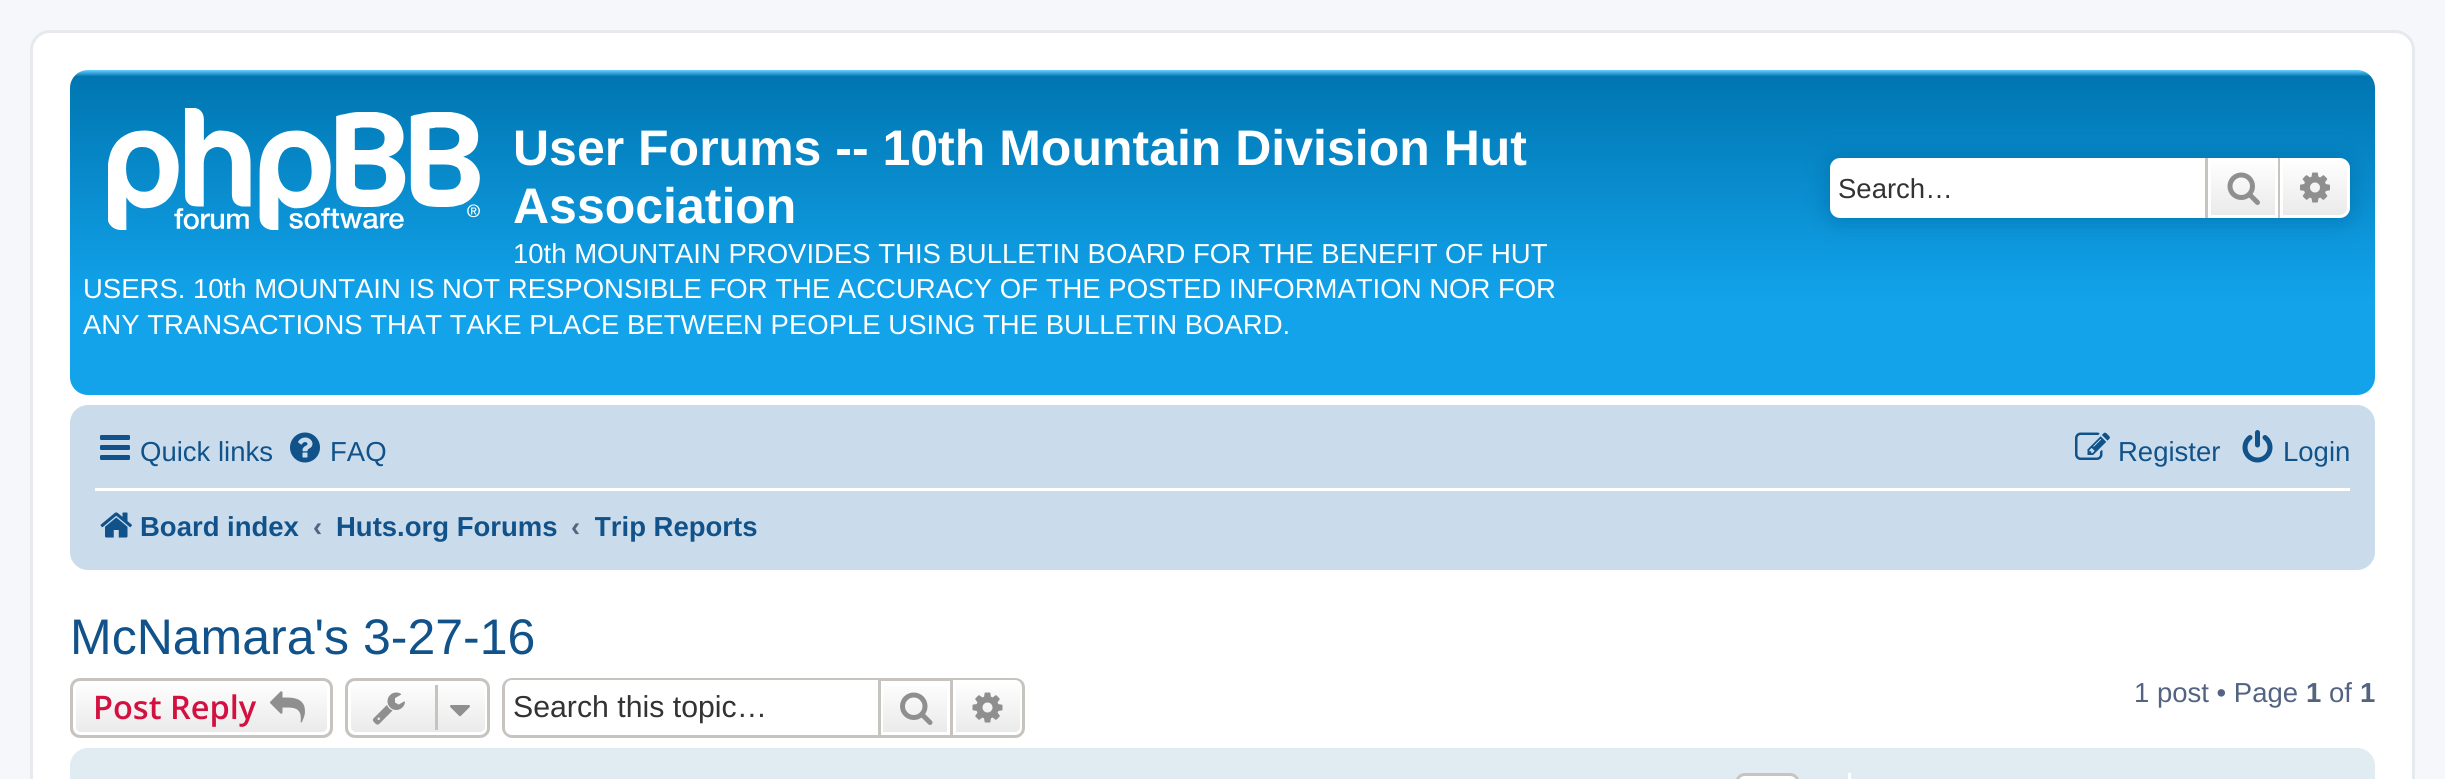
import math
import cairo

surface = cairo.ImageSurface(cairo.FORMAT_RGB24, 2445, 779)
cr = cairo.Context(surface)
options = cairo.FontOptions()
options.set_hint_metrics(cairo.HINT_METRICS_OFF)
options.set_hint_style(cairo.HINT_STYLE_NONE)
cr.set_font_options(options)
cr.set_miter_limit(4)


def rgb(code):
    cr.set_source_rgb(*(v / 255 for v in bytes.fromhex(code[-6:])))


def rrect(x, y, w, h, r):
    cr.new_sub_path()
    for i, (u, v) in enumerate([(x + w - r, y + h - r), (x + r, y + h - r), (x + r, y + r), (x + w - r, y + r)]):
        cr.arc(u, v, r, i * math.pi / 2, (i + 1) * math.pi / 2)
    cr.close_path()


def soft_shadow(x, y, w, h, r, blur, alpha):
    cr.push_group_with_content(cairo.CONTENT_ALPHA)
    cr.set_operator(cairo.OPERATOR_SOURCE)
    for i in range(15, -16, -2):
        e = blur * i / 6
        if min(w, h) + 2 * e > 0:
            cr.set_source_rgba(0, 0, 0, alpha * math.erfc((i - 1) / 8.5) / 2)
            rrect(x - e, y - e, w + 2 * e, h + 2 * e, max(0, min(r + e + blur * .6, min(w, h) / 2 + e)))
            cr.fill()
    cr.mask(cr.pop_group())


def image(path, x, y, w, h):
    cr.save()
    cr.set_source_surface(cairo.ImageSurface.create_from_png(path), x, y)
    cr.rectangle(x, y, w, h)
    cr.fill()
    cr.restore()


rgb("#f5f7fa")
cr.paint()
rgb("#ffffff")
rrect(31.5, 31.5, 2382, 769, 18.5)
cr.fill_preserve()
rgb("#e6e9ed")
cr.set_line_width(3)
cr.stroke()
gradient = cairo.LinearGradient(1223, 70, 1223, 395)
gradient.add_color_stop_rgba(0, 0.416, 0.808, 1, 1)
gradient.add_color_stop_rgba(0.02, 0, 0.463, 0.694, 1)
gradient.add_color_stop_rgba(0.71, 0.071, 0.639, 0.922, 1)
gradient.add_color_stop_rgba(1, 0.071, 0.639, 0.922, 1)
cr.set_source(gradient)
rrect(70, 70, 2305, 325, 18)
cr.fill()
image("img/1.png", 108, 108, 372, 122)
rgb("#0075b0")
soft_shadow(1830, 158, 520, 60, 10, 12.5, 1)
rgb("#ffffff")
cr.new_path()
cr.move_to(1840, 158)
cr.line_to(2205, 158)
cr.line_to(2205, 218)
cr.line_to(1840, 218)
cr.curve_to(1834.5, 218, 1830, 213.5, 1830, 208)
cr.line_to(1830, 168)
cr.curve_to(1830, 162.5, 1834.5, 158, 1840, 158)
cr.close_path()
cr.fill()
gradient = cairo.LinearGradient(2243, 158, 2243, 218)
gradient.add_color_stop_rgba(0, 1, 1, 1, 1)
gradient.add_color_stop_rgba(1, 0.914, 0.914, 0.914, 1)
cr.set_source(gradient)
cr.rectangle(2211, 161, 64, 54)
cr.fill()
cr.rectangle(2209.5, 159.5, 67, 57)
rgb("#ffffff")
cr.stroke()
rgb("#c7c3bf")
cr.rectangle(2278, 158, 2, 60)
cr.fill()
cr.rectangle(2205, 158, 3, 60)
cr.fill()
image("img/2.png", 2227, 172, 33, 33)
gradient = cairo.LinearGradient(2315, 158, 2315, 218)
gradient.add_color_stop_rgba(0, 1, 1, 1, 1)
gradient.add_color_stop_rgba(1, 0.914, 0.914, 0.914, 1)
cr.set_source(gradient)
cr.new_path()
cr.move_to(2281.5, 159.5)
cr.line_to(2340, 159.5)
cr.curve_to(2344.5, 159.5, 2348.5, 163.5, 2348.5, 168)
cr.line_to(2348.5, 208)
cr.curve_to(2348.5, 212.5, 2344.5, 216.5, 2340, 216.5)
cr.line_to(2281.5, 216.5)
cr.close_path()
cr.fill_preserve()
rgb("#ffffff")
cr.stroke()
image("img/3.png", 2300, 172, 30, 31)
rgb("#cadceb")
rrect(70, 405, 2305, 165, 18)
cr.fill()
image("img/4.png", 100, 435, 30, 25)
image("img/5.png", 290, 432, 30, 31)
image("img/6.png", 2075, 432, 35, 28)
image("img/7.png", 2242, 430, 31, 33)
rgb("#ffffff")
cr.rectangle(95, 488, 2255, 3)
cr.fill()
image("img/8.png", 100, 512, 32, 26)
cr.save()
rrect(70, 678, 263, 60, 10)
cr.clip()
gradient = cairo.LinearGradient(201, 680, 201, 735)
gradient.add_color_stop_rgba(0, 1, 1, 1, 1)
gradient.add_color_stop_rgba(1, 0.914, 0.914, 0.914, 1)
cr.set_source(gradient)
cr.rectangle(70, 680, 263, 55)
cr.fill()
cr.restore()
rrect(74.5, 681.5, 254, 52, 6.5)
cr.stroke()
rrect(71.5, 679.5, 260, 57, 8.5)
rgb("#c7c3bf")
cr.stroke()
image("img/9.png", 270, 691, 35, 32)
cr.save()
rrect(345, 678, 145, 60, 10)
cr.clip()
gradient = cairo.LinearGradient(418, 680, 418, 735)
gradient.add_color_stop_rgba(0, 1, 1, 1, 1)
gradient.add_color_stop_rgba(1, 0.914, 0.914, 0.914, 1)
cr.set_source(gradient)
cr.rectangle(345, 680, 145, 55)
cr.fill()
cr.restore()
rrect(349.5, 681.5, 137, 52, 6.5)
rgb("#ffffff")
cr.stroke()
rrect(346.5, 679.5, 142, 57, 8.5)
rgb("#c7c3bf")
cr.stroke()
image("img/10.png", 373, 692, 32, 33)
cr.rectangle(435, 685, 3, 45)
cr.fill()
image("img/11.png", 450, 705, 20, 12)
cr.set_fill_rule(cairo.FILL_RULE_EVEN_ODD)
cr.new_path()
cr.move_to(512, 678)
cr.line_to(878, 678)
cr.line_to(878, 738)
cr.line_to(512, 738)
cr.curve_to(507, 738, 502, 733, 502, 728)
cr.line_to(502, 688)
cr.curve_to(502, 682, 507, 678, 512, 678)
cr.close_path()
cr.move_to(512, 680)
cr.line_to(878, 680)
cr.line_to(878, 735)
cr.line_to(512, 735)
cr.curve_to(508, 735, 505, 732, 505, 728)
cr.line_to(505, 688)
cr.curve_to(505, 683, 508, 680, 512, 680)
cr.close_path()
cr.fill()
gradient = cairo.LinearGradient(915, 680, 915, 735)
gradient.add_color_stop_rgba(0, 1, 1, 1, 1)
gradient.add_color_stop_rgba(1, 0.914, 0.914, 0.914, 1)
cr.set_source(gradient)
cr.rectangle(883, 686, 64, 46)
cr.fill()
cr.rectangle(879.5, 679.5, 72, 57)
rgb("#c7c3bf")
cr.stroke()
image("img/12.png", 900, 692, 33, 33)
gradient = cairo.LinearGradient(988, 680, 988, 735)
gradient.add_color_stop_rgba(0, 1, 1, 1, 1)
gradient.add_color_stop_rgba(1, 0.914, 0.914, 0.914, 1)
cr.set_source(gradient)
cr.new_path()
cr.move_to(954.5, 681.5)
cr.line_to(1015, 681.5)
cr.curve_to(1018.5, 681.5, 1021.5, 684.5, 1021.5, 688)
cr.line_to(1021.5, 727)
cr.curve_to(1021.5, 730.5, 1018.5, 733.5, 1015, 733.5)
cr.line_to(954.5, 733.5)
cr.close_path()
cr.fill_preserve()
rgb("#ffffff")
cr.stroke()
rgb("#c7c3bf")
cr.new_path()
cr.move_to(952, 678)
cr.line_to(1015, 678)
cr.curve_to(1021, 678, 1025, 682, 1025, 688)
cr.line_to(1025, 728)
cr.curve_to(1025, 733, 1021, 738, 1015, 738)
cr.line_to(952, 738)
cr.close_path()
cr.move_to(952, 680)
cr.line_to(1015, 680)
cr.curve_to(1019, 680, 1022, 683, 1022, 688)
cr.line_to(1022, 728)
cr.curve_to(1022, 732, 1019, 735, 1015, 735)
cr.line_to(952, 735)
cr.close_path()
cr.fill()
image("img/13.png", 972, 692, 31, 31)
rgb("#e1ebf2")
rrect(70, 748, 2305, 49, 18)
cr.fill()
cr.save()
cr.set_fill_rule(cairo.FILL_RULE_WINDING)
rrect(1735, 773, 65, 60, 10)
cr.clip()
gradient = cairo.LinearGradient(1768, 775, 1768, 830)
gradient.add_color_stop_rgba(0, 1, 1, 1, 1)
gradient.add_color_stop_rgba(1, 0.914, 0.914, 0.914, 1)
cr.set_source(gradient)
cr.rectangle(1735, 775, 65, 4)
cr.fill()
cr.restore()
rrect(1736.5, 774.5, 62, 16, 8.5)
rgb("#c7c3bf")
cr.stroke()
rgb("#ffffff")
cr.rectangle(1848, 773, 3, 6)
cr.fill()
cr.select_font_face("Liberation Sans", cairo.FONT_SLANT_NORMAL, cairo.FONT_WEIGHT_BOLD)
cr.set_font_size(50)
cr.move_to(513, 165)
cr.show_text("User Forums -- 10th Mountain Division Hut")
cr.move_to(513, 223)
cr.show_text("Association")
cr.select_font_face("Liberation Sans")
cr.set_font_size(27.5)
for x, y, s in [
    (513, 263, "10th MOUNTAIN PROVIDES THIS BULLETIN BOARD FOR THE BENEFIT OF HUT"),
    (83, 298, "USERS. 10th MOUNTAIN IS NOT RESPONSIBLE FOR THE ACCURACY OF THE POSTED INFORMATION NOR FOR"),
    (83, 334, "ANY TRANSACTIONS THAT TAKE PLACE BETWEEN PEOPLE USING THE BULLETIN BOARD."),
]:
    cr.move_to(x, y)
    cr.show_text(s)
rgb("#333333")
cr.move_to(1838, 198)
cr.show_text("Search…")
rgb("#105289")
for x, y, s in [
    (140, 461, "Quick links"),
    (330, 461, "FAQ"),
    (2118, 461, "Register"),
    (2283, 461, "Login"),
]:
    cr.move_to(x, y)
    cr.show_text(s)
cr.select_font_face("Liberation Sans", cairo.FONT_SLANT_NORMAL, cairo.FONT_WEIGHT_BOLD)
cr.move_to(140, 536)
cr.show_text("Board index")
rgb("#536482")
cr.move_to(313, 536)
cr.show_text("‹")
rgb("#105289")
cr.move_to(336, 536)
cr.show_text("Huts.org Forums")
rgb("#536482")
cr.move_to(571, 536)
cr.show_text("‹")
cr.save()
cr.set_fill_rule(cairo.FILL_RULE_WINDING)
cr.rectangle(595, 498, 163, 60)
cr.clip()
rgb("#105289")
cr.move_to(594, 536)
cr.show_text("Trip Reports")
cr.restore()
cr.select_font_face("Liberation Sans")
cr.set_font_size(50)
rgb("#105289")
cr.move_to(70, 654)
cr.show_text("McNamara's 3-27-16")
cr.select_font_face("Open Sans SemiBold")
cr.set_font_size(32.5)
rgb("#d31141")
cr.move_to(93, 719)
cr.show_text("Post Reply")
cr.select_font_face("Liberation Sans")
cr.set_font_size(30.25)
rgb("#333333")
cr.move_to(513, 717)
cr.show_text("Search this topic…")
cr.set_font_size(27.5)
rgb("#536482")
cr.move_to(2134, 702)
cr.show_text("1 post • Page")
cr.select_font_face("Liberation Sans", cairo.FONT_SLANT_NORMAL, cairo.FONT_WEIGHT_BOLD)
cr.move_to(2306, 702)
cr.show_text("1")
cr.select_font_face("Liberation Sans")
cr.move_to(2329, 702)
cr.show_text("of")
cr.select_font_face("Liberation Sans", cairo.FONT_SLANT_NORMAL, cairo.FONT_WEIGHT_BOLD)
cr.move_to(2360, 702)
cr.show_text("1")
surface.write_to_png("page.png")
